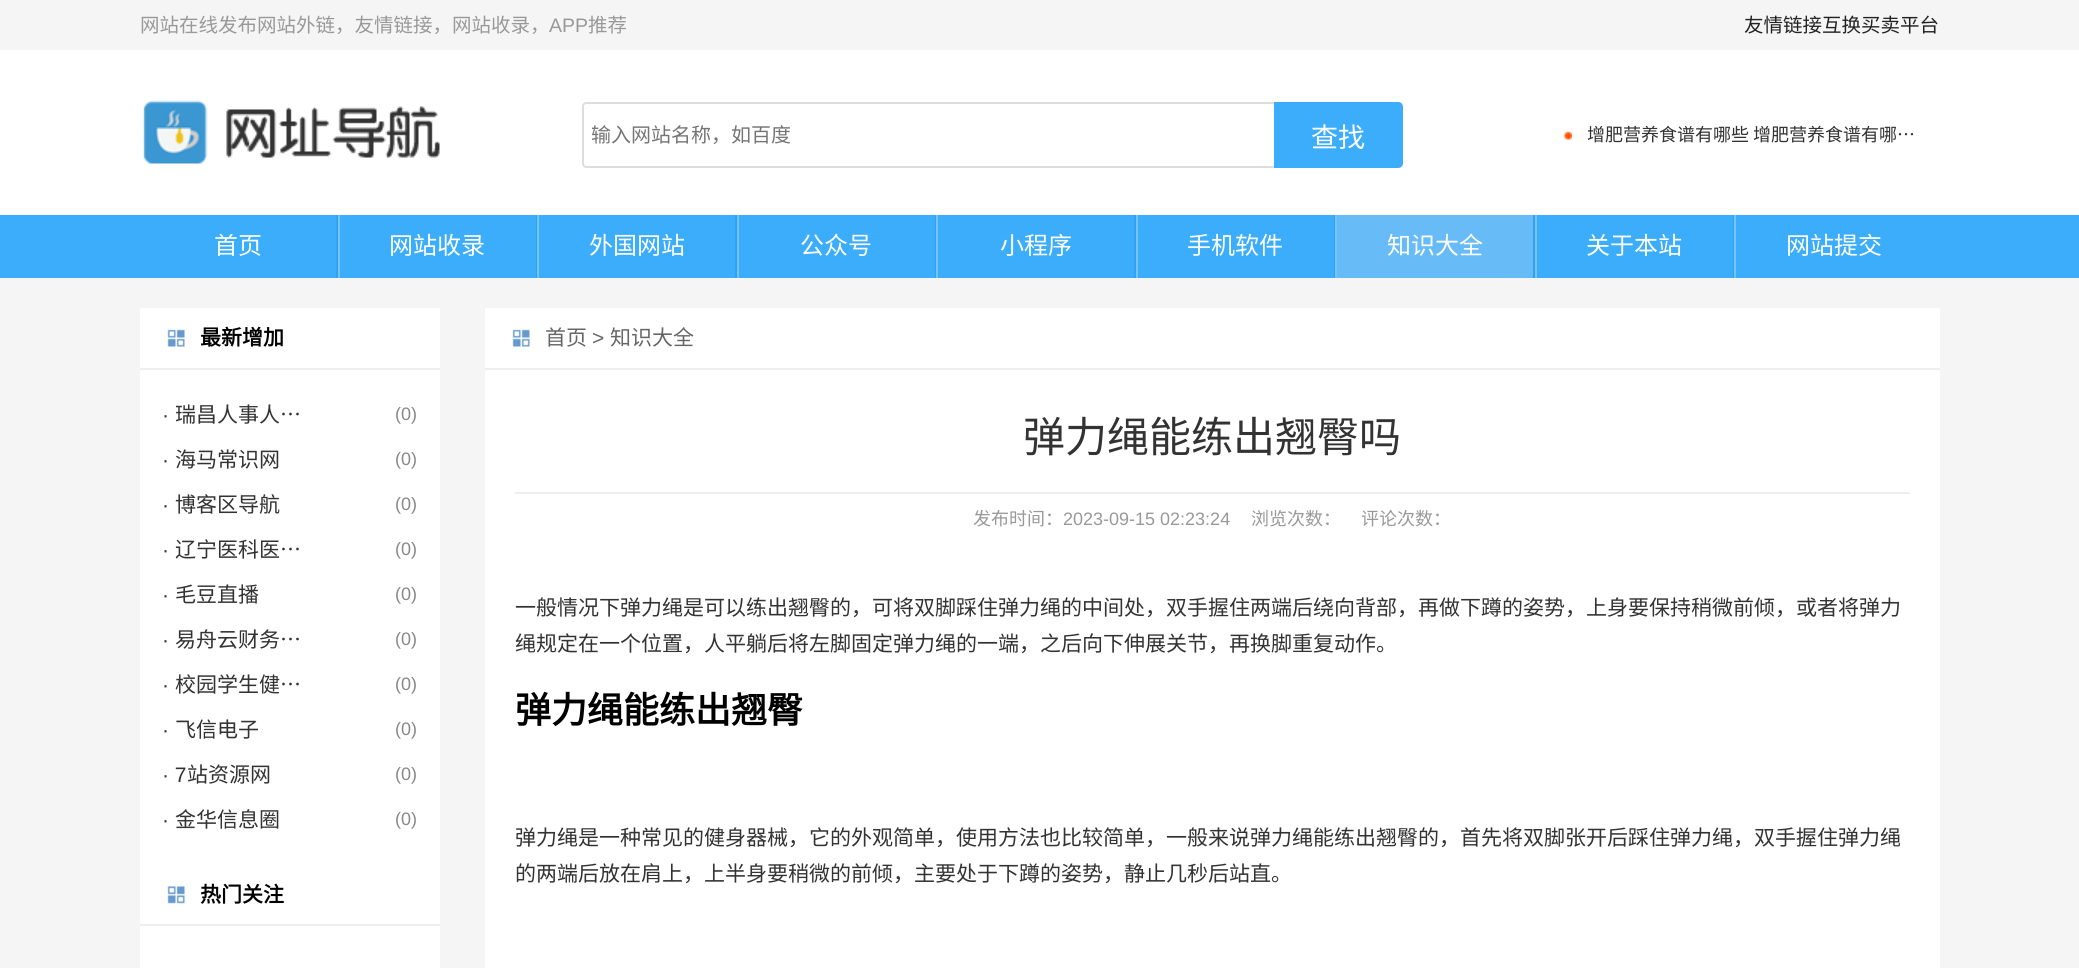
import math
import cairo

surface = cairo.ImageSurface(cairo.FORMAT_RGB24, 2079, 968)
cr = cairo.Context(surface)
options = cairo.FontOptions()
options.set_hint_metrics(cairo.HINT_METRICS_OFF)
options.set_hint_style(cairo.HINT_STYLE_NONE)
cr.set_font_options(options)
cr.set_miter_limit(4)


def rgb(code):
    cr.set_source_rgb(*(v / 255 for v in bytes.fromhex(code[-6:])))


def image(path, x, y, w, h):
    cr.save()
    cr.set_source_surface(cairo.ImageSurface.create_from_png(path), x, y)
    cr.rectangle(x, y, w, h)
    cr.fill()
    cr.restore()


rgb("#f5f5f5")
cr.paint()
rgb("#ffffff")
cr.rectangle(0, 50, 2079, 165)
cr.fill()
image("img/1.png", 143, 100, 297, 64)
rgb("#dddddd")
cr.set_fill_rule(cairo.FILL_RULE_EVEN_ODD)
cr.new_path()
cr.move_to(586, 102)
cr.line_to(1274, 102)
cr.line_to(1274, 168)
cr.line_to(586, 168)
cr.curve_to(584, 168, 582, 166, 582, 164)
cr.line_to(582, 106)
cr.curve_to(582, 104, 584, 102, 586, 102)
cr.close_path()
cr.move_to(586, 104)
cr.line_to(1274, 104)
cr.line_to(1274, 166)
cr.line_to(586, 166)
cr.curve_to(585, 166, 584, 165, 584, 164)
cr.line_to(584, 106)
cr.curve_to(584, 105, 585, 104, 586, 104)
cr.close_path()
cr.fill()
rgb("#3cadfb")
cr.new_path()
cr.move_to(1274, 102)
cr.line_to(1398, 102)
cr.curve_to(1401, 102, 1403, 104, 1403, 107)
cr.line_to(1403, 163)
cr.curve_to(1403, 166, 1401, 168, 1398, 168)
cr.line_to(1274, 168)
cr.close_path()
cr.fill()
image("img/2.png", 1564, 131, 8, 9)
for x, y, w, h, color in [
    (0, 215, 2079, 63, "#3cadfb"),
    (336, 215, 2, 63, "#32a2f0"),
    (536, 215, 1, 63, "#32a2f0"),
    (338, 215, 2, 63, "#74c5fd"),
    (735, 215, 2, 63, "#32a2f0"),
    (537, 215, 2, 63, "#74c5fd"),
    (935, 215, 1, 63, "#32a2f0"),
    (737, 215, 2, 63, "#74c5fd"),
    (1134, 215, 2, 63, "#32a2f0"),
    (936, 215, 2, 63, "#74c5fd"),
    (1334, 215, 1, 63, "#32a2f0"),
    (1136, 215, 2, 63, "#74c5fd"),
    (1533, 215, 2, 63, "#32a2f0"),
    (1335, 215, 2, 63, "#74c5fd"),
    (1337, 215, 196, 63, "#67bcf7"),
    (1733, 215, 1, 63, "#32a2f0"),
    (1535, 215, 2, 63, "#74c5fd"),
    (1734, 215, 2, 63, "#74c5fd"),
    (140, 308, 300, 660, "#ffffff"),
]:
    rgb(color)
    cr.rectangle(x, y, w, h)
    cr.fill()
image("img/3.png", 167, 329, 18, 18)
rgb("#eeeeee")
cr.rectangle(140, 368, 300, 2)
cr.fill()
image("img/4.png", 167, 886, 18, 18)
cr.rectangle(140, 924, 300, 2)
cr.fill()
rgb("#ffffff")
cr.rectangle(485, 308, 1455, 660)
cr.fill()
image("img/3.png", 512, 329, 18, 18)
rgb("#eeeeee")
cr.rectangle(485, 368, 1455, 2)
cr.fill()
cr.rectangle(515, 492, 1395, 2)
cr.fill()
cr.select_font_face("Noto Sans CJK SC")
cr.set_font_size(19.5)
rgb("#999999")
cr.move_to(140, 32)
cr.show_text("网站在线发布网站外链，友情链接，网站收录，")
cr.select_font_face("Liberation Sans")
cr.move_to(549, 32)
cr.show_text("APP")
cr.select_font_face("Noto Sans CJK SC")
cr.move_to(588, 32)
cr.show_text("推荐")
rgb("#222222")
cr.move_to(1744, 32)
cr.show_text("友情链接互换买卖平台")
cr.set_font_size(20)
rgb("#757575")
cr.move_to(591, 142)
cr.show_text("输入网站名称，如百度")
cr.set_font_size(27)
rgb("#ffffff")
cr.move_to(1311, 147)
cr.show_text("查找")
cr.set_font_size(18)
rgb("#333333")
cr.move_to(1587, 141)
cr.show_text("增肥营养食谱有哪些 增肥营养食谱有哪…")
cr.set_font_size(24)
rgb("#ffffff")
for x, y, s in [
    (214, 254, "首页"),
    (389, 254, "网站收录"),
    (589, 254, "外国网站"),
    (800, 254, "公众号"),
    (1000, 254, "小程序"),
    (1187, 254, "手机软件"),
    (1387, 254, "知识大全"),
    (1586, 254, "关于本站"),
    (1786, 254, "网站提交"),
]:
    cr.move_to(x, y)
    cr.show_text(s)
cr.select_font_face("Noto Sans CJK SC", cairo.FONT_SLANT_NORMAL, cairo.FONT_WEIGHT_BOLD)
cr.set_font_size(21)
rgb("#000000")
cr.move_to(200, 345)
cr.show_text("最新增加")
cr.select_font_face("Liberation Sans")
rgb("#333333")
cr.move_to(162, 422)
cr.show_text("·")
cr.select_font_face("Noto Sans CJK SC")
cr.move_to(175, 422)
cr.show_text("瑞昌人事人…")
cr.select_font_face("Liberation Sans")
cr.set_font_size(18)
rgb("#888888")
cr.move_to(395, 420)
cr.show_text("(0)")
cr.set_font_size(21)
rgb("#333333")
cr.move_to(162, 467)
cr.show_text("·")
cr.select_font_face("Noto Sans CJK SC")
cr.move_to(175, 467)
cr.show_text("海马常识网")
cr.select_font_face("Liberation Sans")
cr.set_font_size(18)
rgb("#888888")
cr.move_to(395, 465)
cr.show_text("(0)")
cr.set_font_size(21)
rgb("#333333")
cr.move_to(162, 512)
cr.show_text("·")
cr.select_font_face("Noto Sans CJK SC")
cr.move_to(175, 512)
cr.show_text("博客区导航")
cr.select_font_face("Liberation Sans")
cr.set_font_size(18)
rgb("#888888")
cr.move_to(395, 510)
cr.show_text("(0)")
cr.set_font_size(21)
rgb("#333333")
cr.move_to(162, 557)
cr.show_text("·")
cr.select_font_face("Noto Sans CJK SC")
cr.move_to(175, 557)
cr.show_text("辽宁医科医…")
cr.select_font_face("Liberation Sans")
cr.set_font_size(18)
rgb("#888888")
cr.move_to(395, 555)
cr.show_text("(0)")
cr.set_font_size(21)
rgb("#333333")
cr.move_to(162, 602)
cr.show_text("·")
cr.select_font_face("Noto Sans CJK SC")
cr.move_to(175, 602)
cr.show_text("毛豆直播")
cr.select_font_face("Liberation Sans")
cr.set_font_size(18)
rgb("#888888")
cr.move_to(395, 600)
cr.show_text("(0)")
cr.set_font_size(21)
rgb("#333333")
cr.move_to(162, 647)
cr.show_text("·")
cr.select_font_face("Noto Sans CJK SC")
cr.move_to(175, 647)
cr.show_text("易舟云财务…")
cr.select_font_face("Liberation Sans")
cr.set_font_size(18)
rgb("#888888")
cr.move_to(395, 645)
cr.show_text("(0)")
cr.set_font_size(21)
rgb("#333333")
cr.move_to(162, 692)
cr.show_text("·")
cr.select_font_face("Noto Sans CJK SC")
cr.move_to(175, 692)
cr.show_text("校园学生健…")
cr.select_font_face("Liberation Sans")
cr.set_font_size(18)
rgb("#888888")
cr.move_to(395, 690)
cr.show_text("(0)")
cr.set_font_size(21)
rgb("#333333")
cr.move_to(162, 737)
cr.show_text("·")
cr.select_font_face("Noto Sans CJK SC")
cr.move_to(175, 737)
cr.show_text("飞信电子")
cr.select_font_face("Liberation Sans")
cr.set_font_size(18)
rgb("#888888")
cr.move_to(395, 735)
cr.show_text("(0)")
cr.set_font_size(21)
rgb("#333333")
cr.move_to(162, 782)
cr.show_text("· 7")
cr.select_font_face("Noto Sans CJK SC")
cr.move_to(187, 782)
cr.show_text("站资源网")
cr.select_font_face("Liberation Sans")
cr.set_font_size(18)
rgb("#888888")
cr.move_to(395, 780)
cr.show_text("(0)")
cr.set_font_size(21)
rgb("#333333")
cr.move_to(162, 827)
cr.show_text("·")
cr.select_font_face("Noto Sans CJK SC")
cr.move_to(175, 827)
cr.show_text("金华信息圈")
cr.select_font_face("Liberation Sans")
cr.set_font_size(18)
rgb("#888888")
cr.move_to(395, 825)
cr.show_text("(0)")
cr.select_font_face("Noto Sans CJK SC", cairo.FONT_SLANT_NORMAL, cairo.FONT_WEIGHT_BOLD)
cr.set_font_size(21)
rgb("#000000")
cr.move_to(200, 902)
cr.show_text("热门关注")
cr.select_font_face("Noto Sans CJK SC")
rgb("#666666")
cr.move_to(545, 345)
cr.show_text("首页")
cr.select_font_face("Liberation Sans")
cr.move_to(592, 345)
cr.show_text(">")
cr.select_font_face("Noto Sans CJK SC")
cr.move_to(610, 345)
cr.show_text("知识大全")
cr.set_font_size(42)
rgb("#333333")
cr.move_to(1023, 452)
cr.show_text("弹力绳能练出翘臀吗")
cr.set_font_size(18)
rgb("#999999")
cr.move_to(973, 525)
cr.show_text("发布时间：")
cr.select_font_face("Liberation Sans")
cr.move_to(1063, 525)
cr.show_text("2023-09-15 02:23:24")
cr.select_font_face("Noto Sans CJK SC")
cr.move_to(1251, 525)
cr.show_text("浏览次数：")
cr.move_to(1361, 525)
cr.show_text("评论次数：")
cr.set_font_size(21)
rgb("#333333")
cr.move_to(515, 615)
cr.show_text("一般情况下弹力绳是可以练出翘臀的，可将双脚踩住弹力绳的中间处，双手握住两端后绕向背部，再做下蹲的姿势，上身要保持稍微前倾，或者将弹力")
cr.move_to(515, 651)
cr.show_text("绳规定在一个位置，人平躺后将左脚固定弹力绳的一端，之后向下伸展关节，再换脚重复动作。")
cr.select_font_face("Noto Sans CJK SC", cairo.FONT_SLANT_NORMAL, cairo.FONT_WEIGHT_BOLD)
cr.set_font_size(36)
rgb("#000000")
cr.move_to(515, 723)
cr.show_text("弹力绳能练出翘臀")
cr.select_font_face("Noto Sans CJK SC")
cr.set_font_size(21)
rgb("#333333")
cr.move_to(515, 845)
cr.show_text("弹力绳是一种常见的健身器械，它的外观简单，使用方法也比较简单，一般来说弹力绳能练出翘臀的，首先将双脚张开后踩住弹力绳，双手握住弹力绳")
cr.move_to(515, 881)
cr.show_text("的两端后放在肩上，上半身要稍微的前倾，主要处于下蹲的姿势，静止几秒后站直。")
surface.write_to_png("page.png")
